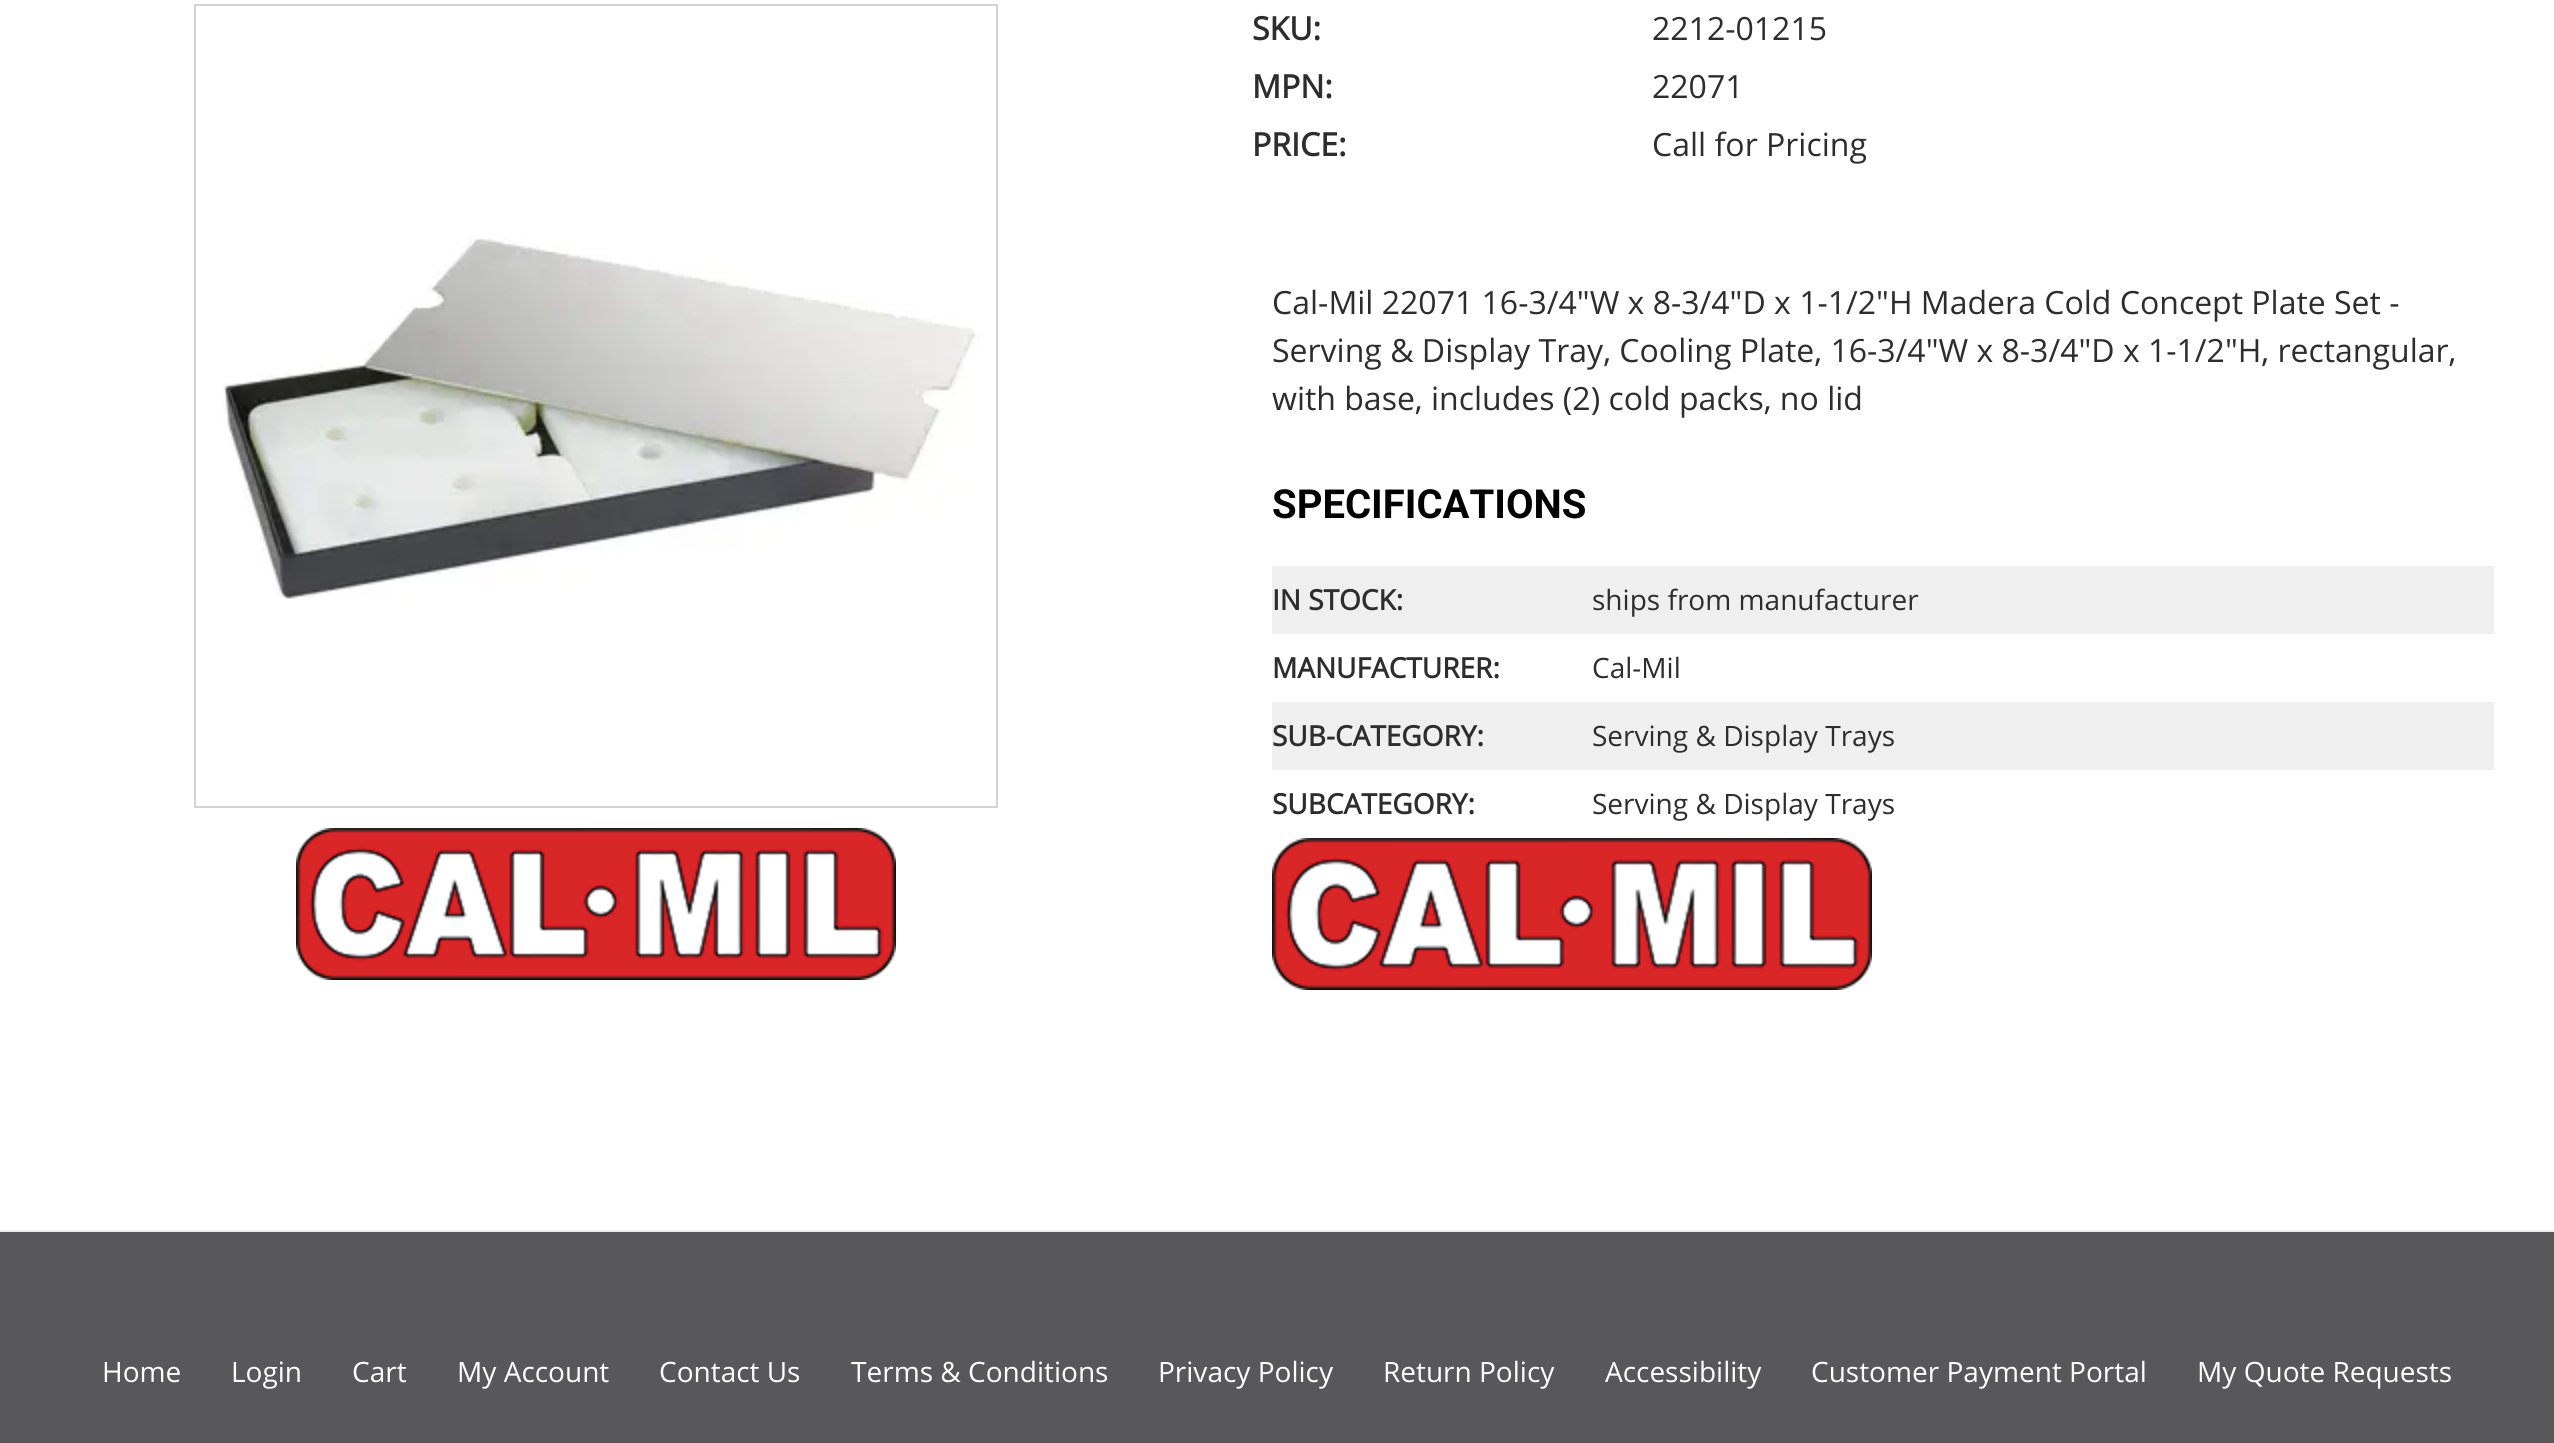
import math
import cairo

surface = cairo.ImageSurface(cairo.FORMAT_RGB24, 2554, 1443)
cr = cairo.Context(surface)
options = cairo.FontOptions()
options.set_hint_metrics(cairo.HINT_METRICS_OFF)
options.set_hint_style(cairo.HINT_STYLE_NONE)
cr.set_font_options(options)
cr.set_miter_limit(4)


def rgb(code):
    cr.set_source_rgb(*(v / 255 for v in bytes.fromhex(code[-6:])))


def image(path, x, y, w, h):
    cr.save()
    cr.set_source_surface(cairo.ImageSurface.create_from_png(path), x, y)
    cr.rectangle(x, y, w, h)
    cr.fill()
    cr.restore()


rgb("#ffffff")
cr.paint()
cr.rectangle(195, 5, 802, 802)
rgb("#d3d3d3")
cr.stroke()
image("img/1.png", 222, 238, 758, 361)
image("img/2.png", 296, 828, 600, 152)
rgb("#efefef")
cr.rectangle(1272, 566, 1222, 68)
cr.fill()
cr.rectangle(1272, 702, 1222, 68)
cr.fill()
image("img/2.png", 1272, 838, 600, 152)
rgb("#58585a")
cr.rectangle(0, 1232, 2554, 211)
cr.fill()
rgb("#ececec")
cr.rectangle(0, 1230, 2554, 2)
cr.fill()
cr.select_font_face("Open Sans", cairo.FONT_SLANT_NORMAL, cairo.FONT_WEIGHT_BOLD)
cr.set_font_size(32)
rgb("#2e2d2e")
cr.move_to(1252, 40)
cr.show_text("SKU:")
cr.select_font_face("Open Sans")
cr.move_to(1652, 40)
cr.show_text("2212-01215")
cr.select_font_face("Open Sans", cairo.FONT_SLANT_NORMAL, cairo.FONT_WEIGHT_BOLD)
cr.move_to(1252, 98)
cr.show_text("MPN:")
cr.select_font_face("Open Sans")
cr.move_to(1652, 98)
cr.show_text("22071")
cr.select_font_face("Open Sans", cairo.FONT_SLANT_NORMAL, cairo.FONT_WEIGHT_BOLD)
cr.move_to(1252, 156)
cr.show_text("PRICE:")
cr.select_font_face("Open Sans")
for x, y, s in [
    (1652, 156, "Call for Pricing"),
    (1272, 314, "Cal-Mil 22071 16-3/4\"W x 8-3/4\"D x 1-1/2\"H Madera Cold Concept Plate Set -"),
    (1272, 362, "Serving & Display Tray, Cooling Plate, 16-3/4\"W x 8-3/4\"D x 1-1/2\"H, rectangular,"),
    (1272, 410, "with base, includes (2) cold packs, no lid"),
]:
    cr.move_to(x, y)
    cr.show_text(s)
cr.select_font_face("Roboto", cairo.FONT_SLANT_NORMAL, cairo.FONT_WEIGHT_BOLD)
cr.set_font_size(40)
rgb("#000000")
cr.move_to(1272, 518)
cr.show_text("SPECIFICATIONS")
cr.select_font_face("Open Sans", cairo.FONT_SLANT_NORMAL, cairo.FONT_WEIGHT_BOLD)
cr.set_font_size(28)
rgb("#2e2d2e")
cr.move_to(1272, 610)
cr.show_text("IN STOCK:")
cr.select_font_face("Open Sans")
cr.move_to(1592, 610)
cr.show_text("ships from manufacturer")
cr.select_font_face("Open Sans", cairo.FONT_SLANT_NORMAL, cairo.FONT_WEIGHT_BOLD)
cr.move_to(1272, 678)
cr.show_text("MANUFACTURER:")
cr.select_font_face("Open Sans")
cr.move_to(1592, 678)
cr.show_text("Cal-Mil")
cr.select_font_face("Open Sans", cairo.FONT_SLANT_NORMAL, cairo.FONT_WEIGHT_BOLD)
cr.move_to(1272, 746)
cr.show_text("SUB-CATEGORY:")
cr.select_font_face("Open Sans")
cr.move_to(1592, 746)
cr.show_text("Serving & Display Trays")
cr.select_font_face("Open Sans", cairo.FONT_SLANT_NORMAL, cairo.FONT_WEIGHT_BOLD)
cr.move_to(1272, 814)
cr.show_text("SUBCATEGORY:")
cr.select_font_face("Open Sans")
cr.move_to(1592, 814)
cr.show_text("Serving & Display Trays")
rgb("#ffffff")
for x, y, s in [
    (102, 1382, "Home"),
    (231, 1382, "Login"),
    (352, 1382, "Cart"),
    (457, 1382, "My Account"),
    (659, 1382, "Contact Us"),
    (851, 1382, "Terms & Conditions"),
    (1158, 1382, "Privacy Policy"),
    (1383, 1382, "Return Policy"),
    (1605, 1382, "Accessibility"),
    (1811, 1382, "Customer Payment Portal"),
    (2197, 1382, "My Quote Requests"),
]:
    cr.move_to(x, y)
    cr.show_text(s)
surface.write_to_png("page.png")
